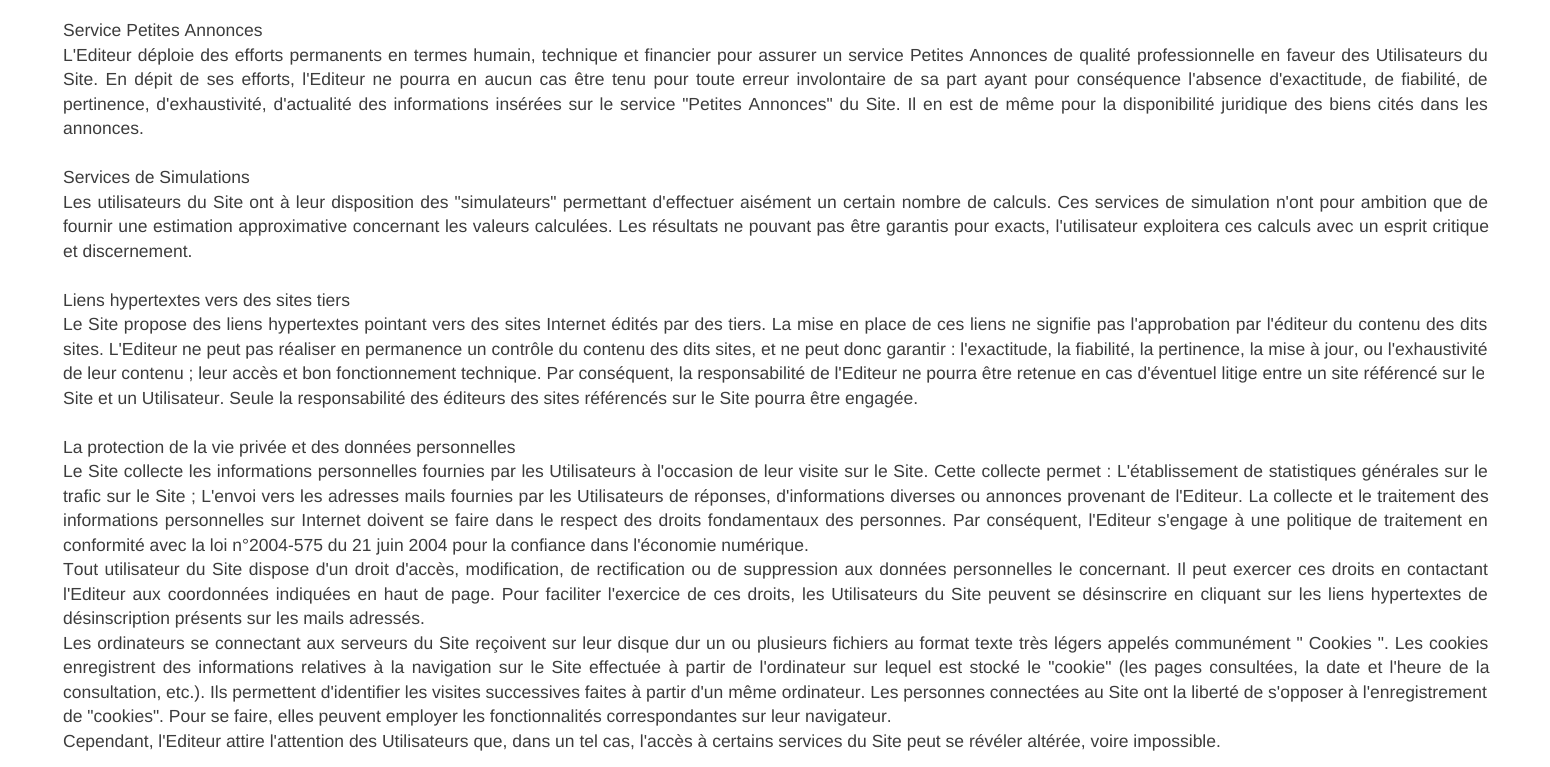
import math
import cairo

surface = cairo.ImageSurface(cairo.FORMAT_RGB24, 1550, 767)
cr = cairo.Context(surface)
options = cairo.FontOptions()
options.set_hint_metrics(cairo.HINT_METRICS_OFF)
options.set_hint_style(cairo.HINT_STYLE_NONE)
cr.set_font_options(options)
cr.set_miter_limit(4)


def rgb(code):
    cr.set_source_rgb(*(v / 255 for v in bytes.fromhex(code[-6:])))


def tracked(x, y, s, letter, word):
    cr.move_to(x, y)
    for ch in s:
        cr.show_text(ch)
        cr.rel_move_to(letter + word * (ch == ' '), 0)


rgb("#ffffff")
cr.paint()
cr.select_font_face("Liberation Sans")
cr.set_font_size(17.5)
rgb("#3c3c3c")
cr.move_to(63, 36)
cr.show_text("Service Petites Annonces")
tracked(63, 61, "L'Editeur déploie des efforts permanents en termes humain, technique et financier pour assurer un service Petites Annonces de qualité professionnelle en faveur des Utilisateurs du", 0, 1.3)
tracked(63, 85, "Site. En dépit de ses efforts, l'Editeur ne pourra en aucun cas être tenu pour toute erreur involontaire de sa part ayant pour conséquence l'absence d'exactitude, de fiabilité, de", 0, 2.6)
tracked(63, 110, "pertinence, d'exhaustivité, d'actualité des informations insérées sur le service \"Petites Annonces\" du Site. Il en est de même pour la disponibilité juridique des biens cités dans les", 0, 1.9)
cr.move_to(63, 134)
cr.show_text("annonces.")
cr.move_to(63, 183)
cr.show_text("Services de Simulations")
tracked(63, 208, "Les utilisateurs du Site ont à leur disposition des \"simulateurs\" permettant d'effectuer aisément un certain nombre de calculs. Ces services de simulation n'ont pour ambition que de", 0, 1.35)
tracked(63, 232, "fournir une estimation approximative concernant les valeurs calculées. Les résultats ne pouvant pas être garantis pour exacts, l'utilisateur exploitera ces calculs avec un esprit critique", 0, 0.7)
cr.move_to(63, 257)
cr.show_text("et discernement.")
cr.move_to(63, 306)
cr.show_text("Liens hypertextes vers des sites tiers")
tracked(63, 330, "Le Site propose des liens hypertextes pointant vers des sites Internet édités par des tiers. La mise en place de ces liens ne signifie pas l'approbation par l'éditeur du contenu des dits", 0, 0.75)
for x, y, s in [
    (63, 355, "sites. L'Editeur ne peut pas réaliser en permanence un contrôle du contenu des dits sites, et ne peut donc garantir : l'exactitude, la fiabilité, la pertinence, la mise à jour, ou l'exhaustivité"),
    (63, 379, "de leur contenu ; leur accès et bon fonctionnement technique. Par conséquent, la responsabilité de l'Editeur ne pourra être retenue en cas d'éventuel litige entre un site référencé sur le"),
    (63, 404, "Site et un Utilisateur. Seule la responsabilité des éditeurs des sites référencés sur le Site pourra être engagée."),
    (63, 453, "La protection de la vie privée et des données personnelles"),
]:
    cr.move_to(x, y)
    cr.show_text(s)
tracked(63, 477, "Le Site collecte les informations personnelles fournies par les Utilisateurs à l'occasion de leur visite sur le Site. Cette collecte permet : L'établissement de statistiques générales sur le", 0, 0.75)
tracked(63, 502, "trafic sur le Site ; L'envoi vers les adresses mails fournies par les Utilisateurs de réponses, d'informations diverses ou annonces provenant de l'Editeur. La collecte et le traitement des", 0, 0.6)
tracked(63, 526, "informations personnelles sur Internet doivent se faire dans le respect des droits fondamentaux des personnes. Par conséquent, l'Editeur s'engage à une politique de traitement en", 0, 1.6)
cr.move_to(63, 551)
cr.show_text("conformité avec la loi n°2004-575 du 21 juin 2004 pour la confiance dans l'économie numérique.")
tracked(63, 575, "Tout utilisateur du Site dispose d'un droit d'accès, modification, de rectification ou de suppression aux données personnelles le concernant. Il peut exercer ces droits en contactant", 0, 1.7)
tracked(63, 600, "l'Editeur aux coordonnées indiquées en haut de page. Pour faciliter l'exercice de ces droits, les Utilisateurs du Site peuvent se désinscrire en cliquant sur les liens hypertextes de", 0, 2)
cr.move_to(63, 624)
cr.show_text("désinscription présents sur les mails adressés.")
tracked(63, 649, "Les ordinateurs se connectant aux serveurs du Site reçoivent sur leur disque dur un ou plusieurs fichiers au format texte très légers appelés communément \" Cookies \". Les cookies", 0, 1.05)
tracked(63, 673, "enregistrent des informations relatives à la navigation sur le Site effectuée à partir de l'ordinateur sur lequel est stocké le \"cookie\" (les pages consultées, la date et l'heure de la", 0, 2.5)
for x, y, s in [
    (63, 698, "consultation, etc.). Ils permettent d'identifier les visites successives faites à partir d'un même ordinateur. Les personnes connectées au Site ont la liberté de s'opposer à l'enregistrement"),
    (63, 722, "de \"cookies\". Pour se faire, elles peuvent employer les fonctionnalités correspondantes sur leur navigateur."),
    (63, 747, "Cependant, l'Editeur attire l'attention des Utilisateurs que, dans un tel cas, l'accès à certains services du Site peut se révéler altérée, voire impossible."),
]:
    cr.move_to(x, y)
    cr.show_text(s)
surface.write_to_png("page.png")
